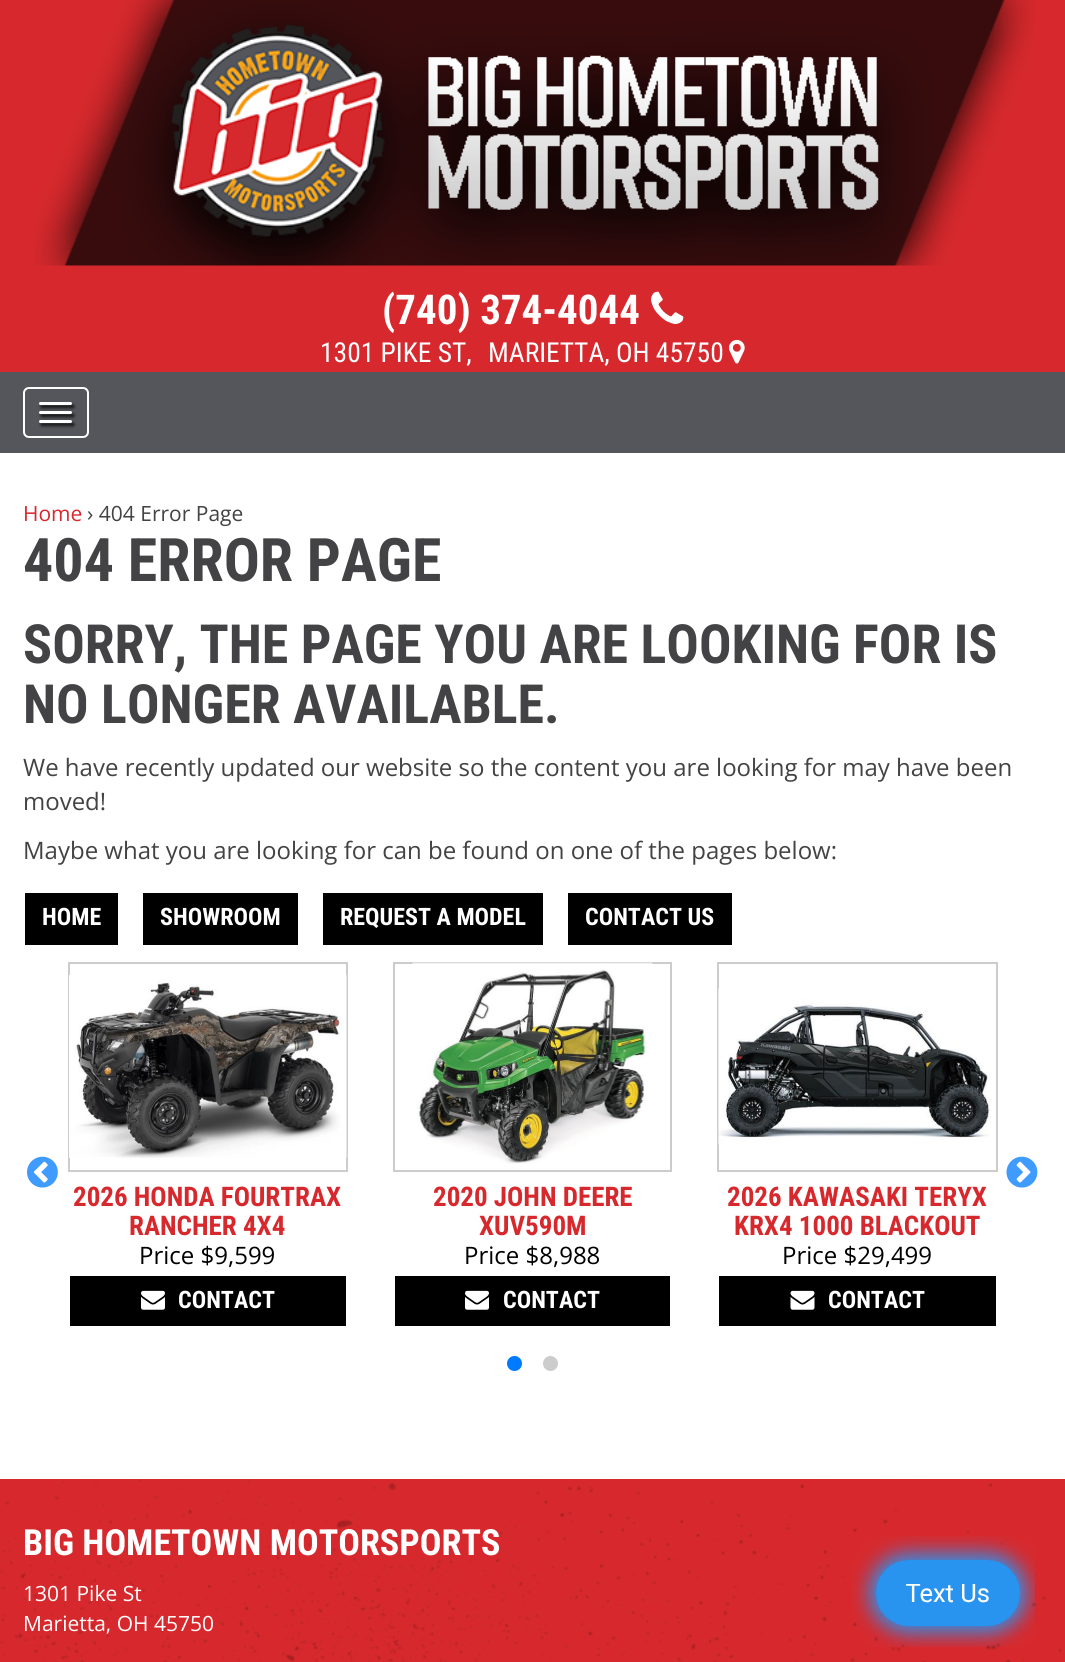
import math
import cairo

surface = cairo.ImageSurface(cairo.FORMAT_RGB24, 1065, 1662)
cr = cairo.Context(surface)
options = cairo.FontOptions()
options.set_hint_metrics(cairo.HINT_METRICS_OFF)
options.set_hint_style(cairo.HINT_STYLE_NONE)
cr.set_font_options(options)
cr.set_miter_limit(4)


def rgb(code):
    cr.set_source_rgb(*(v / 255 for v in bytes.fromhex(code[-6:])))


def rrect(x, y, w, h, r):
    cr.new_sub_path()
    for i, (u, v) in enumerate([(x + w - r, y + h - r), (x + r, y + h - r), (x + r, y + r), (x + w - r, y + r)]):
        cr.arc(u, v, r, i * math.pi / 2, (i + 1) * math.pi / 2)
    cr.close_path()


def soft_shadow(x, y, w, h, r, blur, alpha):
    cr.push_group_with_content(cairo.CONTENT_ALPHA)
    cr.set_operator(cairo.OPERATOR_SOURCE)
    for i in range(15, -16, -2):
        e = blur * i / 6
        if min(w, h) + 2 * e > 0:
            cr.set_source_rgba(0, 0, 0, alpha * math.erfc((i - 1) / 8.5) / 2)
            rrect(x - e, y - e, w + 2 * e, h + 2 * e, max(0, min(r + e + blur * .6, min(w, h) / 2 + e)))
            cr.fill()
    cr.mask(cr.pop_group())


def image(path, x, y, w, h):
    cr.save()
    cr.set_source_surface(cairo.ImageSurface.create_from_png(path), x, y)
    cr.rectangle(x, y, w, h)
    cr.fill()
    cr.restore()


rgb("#ffffff")
cr.paint()
rgb("#d7292d")
cr.rectangle(0, 0, 1065, 372)
cr.fill()
image("img/1.png", 34, 0, 1001, 266)
image("img/2.png", 651, 291, 33, 33)
image("img/3.png", 729, 339, 16, 25)
rgb("#55565b")
cr.rectangle(0, 372, 1065, 81)
cr.fill()
rrect(24, 388, 64, 49, 5)
rgb("#ffffff")
cr.stroke()
rgb("#000000")
soft_shadow(41, 405, 33, 3, 1.5, 1.5, 0.75)
rgb("#ffffff")
rrect(39, 402, 33, 3, 1.5)
cr.fill()
rgb("#000000")
soft_shadow(41, 414, 33, 3, 1.5, 1.5, 0.75)
rgb("#ffffff")
rrect(39, 411, 33, 3, 1.5)
cr.fill()
rgb("#000000")
soft_shadow(41, 423, 33, 3, 1.5, 1.5, 0.75)
rgb("#ffffff")
rrect(39, 420, 33, 3, 1.5)
cr.fill()
for x, y, w, h, color in [
    (25, 893, 93, 52, "#000000"),
    (143, 893, 155, 52, "#000000"),
    (323, 893, 220, 52, "#000000"),
    (568, 893, 164, 52, "#000000"),
]:
    rgb(color)
    cr.rectangle(x, y, w, h)
    cr.fill()
image("img/4.png", 27, 1156, 31, 32)
image("img/5.png", 1006, 1156, 32, 32)
cr.rectangle(69, 963, 278, 208)
rgb("#cccccc")
cr.stroke()
image("img/6.png", 69, 975, 278, 183)
rgb("#000000")
cr.rectangle(70, 1276, 276, 50)
cr.fill()
image("img/7.png", 141, 1290, 24, 20)
cr.rectangle(394, 963, 277, 208)
rgb("#cccccc")
cr.stroke()
image("img/8.png", 412, 962, 241, 202)
rgb("#000000")
cr.rectangle(395, 1276, 275, 50)
cr.fill()
image("img/7.png", 465, 1290, 24, 20)
cr.rectangle(718, 963, 279, 208)
rgb("#cccccc")
cr.stroke()
image("img/9.png", 718, 988, 273, 157)
rgb("#000000")
cr.rectangle(719, 1276, 277, 50)
cr.fill()
image("img/10.png", 790, 1290, 25, 20)
rgb("#007aff")
cr.arc(514.5, 1363.5, 7.5, 0, 2 * math.pi)
cr.fill()
rgb("#cccccc")
cr.arc(550.5, 1363.5, 7.5, 0, 2 * math.pi)
cr.fill()
rgb("#d7292d")
cr.rectangle(0, 1479, 1065, 183)
cr.fill()
image("img/11.png", 0, 1479, 1062, 183)
image("img/12.png", 852, 1536, 183, 111)
cr.select_font_face("Roboto Condensed", cairo.FONT_SLANT_NORMAL, cairo.FONT_WEIGHT_BOLD)
cr.set_font_size(41)
rgb("#ffffff")
cr.move_to(382, 324)
cr.show_text("(740) 374-4044")
cr.select_font_face("Roboto Condensed")
cr.set_font_size(27.5)
cr.move_to(320, 362)
cr.show_text("1301 PIKE ST,")
cr.move_to(488, 362)
cr.show_text("MARIETTA, OH 45750")
cr.select_font_face("Open Sans")
cr.set_font_size(21)
rgb("#d7292d")
cr.move_to(23, 521)
cr.show_text("Home")
rgb("#434345")
cr.move_to(87, 521)
cr.show_text("› 404 Error Page")
cr.select_font_face("Roboto Condensed", cairo.FONT_SLANT_NORMAL, cairo.FONT_WEIGHT_BOLD)
cr.set_font_size(60)
cr.move_to(23, 581)
cr.show_text("404 ERROR PAGE")
cr.set_font_size(54)
cr.move_to(23, 663)
cr.show_text("SORRY, THE PAGE YOU ARE LOOKING FOR IS")
cr.move_to(23, 723)
cr.show_text("NO LONGER AVAILABLE.")
cr.select_font_face("Open Sans")
cr.set_font_size(24)
for x, y, s in [
    (23, 776, "We have recently updated our website so the content you are looking for may have been"),
    (23, 810, "moved!"),
    (23, 859, "Maybe what you are looking for can be found on one of the pages below:"),
]:
    cr.move_to(x, y)
    cr.show_text(s)
cr.select_font_face("Roboto Condensed", cairo.FONT_SLANT_NORMAL, cairo.FONT_WEIGHT_BOLD)
rgb("#ffffff")
for x, y, s in [
    (42, 925, "HOME"),
    (160, 925, "SHOWROOM"),
    (340, 925, "REQUEST A MODEL"),
    (585, 925, "CONTACT US"),
]:
    cr.move_to(x, y)
    cr.show_text(s)
cr.set_font_size(27)
rgb("#d7292d")
cr.move_to(73, 1206)
cr.show_text("2026 HONDA FOURTRAX")
cr.move_to(129, 1235)
cr.show_text("RANCHER 4X4")
cr.select_font_face("Open Sans")
cr.set_font_size(24)
rgb("#000000")
cr.move_to(139, 1264)
cr.show_text("Price $9,599")
cr.select_font_face("Roboto Condensed", cairo.FONT_SLANT_NORMAL, cairo.FONT_WEIGHT_BOLD)
rgb("#ffffff")
cr.move_to(178, 1308)
cr.show_text("CONTACT")
cr.set_font_size(27)
rgb("#d7292d")
cr.move_to(433, 1206)
cr.show_text("2020 JOHN DEERE")
cr.move_to(479, 1235)
cr.show_text("XUV590M")
cr.select_font_face("Open Sans")
cr.set_font_size(24)
rgb("#000000")
cr.move_to(464, 1264)
cr.show_text("Price $8,988")
cr.select_font_face("Roboto Condensed", cairo.FONT_SLANT_NORMAL, cairo.FONT_WEIGHT_BOLD)
rgb("#ffffff")
cr.move_to(503, 1308)
cr.show_text("CONTACT")
cr.set_font_size(27)
rgb("#d7292d")
cr.move_to(727, 1206)
cr.show_text("2026 KAWASAKI TERYX")
cr.move_to(734, 1235)
cr.show_text("KRX4 1000 BLACKOUT")
cr.select_font_face("Open Sans")
cr.set_font_size(24)
rgb("#000000")
cr.move_to(782, 1264)
cr.show_text("Price $29,499")
cr.select_font_face("Roboto Condensed", cairo.FONT_SLANT_NORMAL, cairo.FONT_WEIGHT_BOLD)
rgb("#ffffff")
cr.move_to(828, 1308)
cr.show_text("CONTACT")
cr.set_font_size(36)
cr.move_to(23, 1555)
cr.show_text("BIG HOMETOWN MOTORSPORTS")
cr.select_font_face("Open Sans")
cr.set_font_size(21)
cr.move_to(23, 1601)
cr.show_text("1301 Pike St")
cr.move_to(23, 1631)
cr.show_text("Marietta, OH 45750")
surface.write_to_png("page.png")
